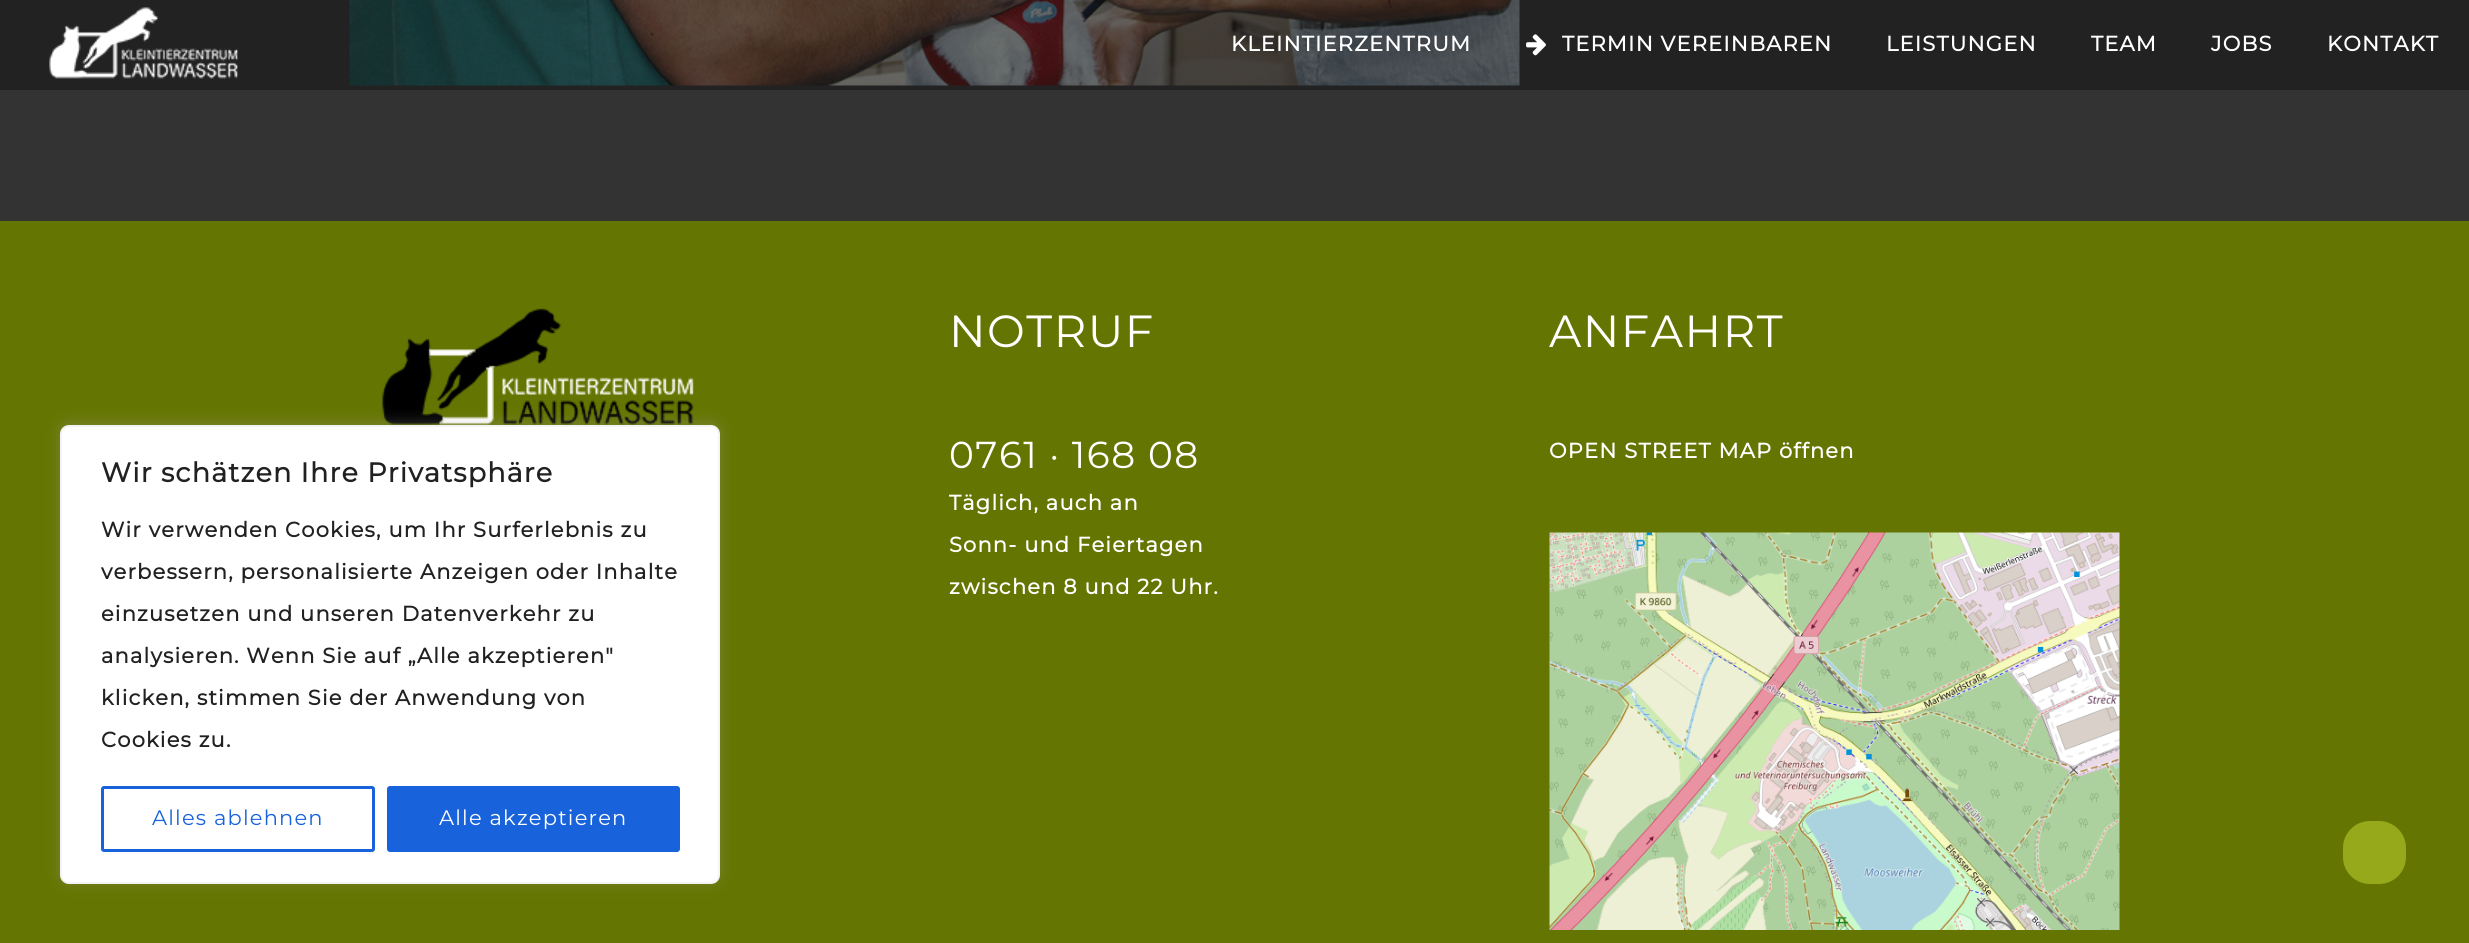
import math
import cairo

surface = cairo.ImageSurface(cairo.FORMAT_RGB24, 2469, 943)
cr = cairo.Context(surface)
options = cairo.FontOptions()
options.set_hint_metrics(cairo.HINT_METRICS_OFF)
options.set_hint_style(cairo.HINT_STYLE_NONE)
cr.set_font_options(options)
cr.set_miter_limit(4)


def rgb(code):
    cr.set_source_rgb(*(v / 255 for v in bytes.fromhex(code[-6:])))


def tracked(x, y, s, letter, word):
    cr.move_to(x, y)
    for ch in s:
        cr.show_text(ch)
        cr.rel_move_to(letter + word * (ch == ' '), 0)


def rrect(x, y, w, h, r):
    cr.new_sub_path()
    for i, (u, v) in enumerate([(x + w - r, y + h - r), (x + r, y + h - r), (x + r, y + r), (x + w - r, y + r)]):
        cr.arc(u, v, r, i * math.pi / 2, (i + 1) * math.pi / 2)
    cr.close_path()


def soft_shadow(x, y, w, h, r, blur, alpha):
    cr.push_group_with_content(cairo.CONTENT_ALPHA)
    cr.set_operator(cairo.OPERATOR_SOURCE)
    for i in range(15, -16, -2):
        e = blur * i / 6
        if min(w, h) + 2 * e > 0:
            cr.set_source_rgba(0, 0, 0, alpha * math.erfc((i - 1) / 8.5) / 2)
            rrect(x - e, y - e, w + 2 * e, h + 2 * e, max(0, min(r + e + blur * .6, min(w, h) / 2 + e)))
            cr.fill()
    cr.mask(cr.pop_group())


def image(path, x, y, w, h):
    cr.save()
    cr.set_source_surface(cairo.ImageSurface.create_from_png(path), x, y)
    cr.rectangle(x, y, w, h)
    cr.fill()
    cr.restore()


rgb("#333333")
cr.paint()
rgb("#222222")
cr.rectangle(0, 0, 2469, 90)
cr.fill()
image("img/1.png", 49, 7, 189, 72)
image("img/2.png", 1526, 34, 20, 22)
rgb("#657501")
cr.rectangle(0, 221, 2469, 722)
cr.fill()
image("img/4.png", 382, 308, 312, 117)
rgb("#acabab")
soft_shadow(60, 423, 660, 459, 9, 7.5, 0.3)
rgb("#ffffff")
rrect(61, 426, 658, 457, 8)
cr.fill_preserve()
rgb("#f4f4f4")
cr.stroke()
rrect(102.5, 787.5, 271, 63, 1.5)
rgb("#1863dc")
cr.set_line_width(3)
cr.stroke()
rrect(388.5, 787.5, 290, 63, 1.5)
cr.fill_preserve()
cr.stroke()
image("img/3.png", 349, 0, 1171, 86)
image("img/5.png", 1549, 532, 571, 398)
rgb("#96a91b")
rrect(2343, 821, 63, 63, 27)
cr.fill()
cr.select_font_face("Montserrat", cairo.FONT_SLANT_NORMAL, cairo.FONT_WEIGHT_BOLD)
cr.set_font_size(21)
rgb("#ffffff")
for x, y, s in [
    (1231, 51, "KLEINTIERZENTRUM"),
    (1562, 51, "TERMIN VEREINBAREN"),
    (1886, 51, "LEISTUNGEN"),
    (2091, 51, "TEAM"),
    (2211, 51, "JOBS"),
    (2327, 51, "KONTAKT"),
]:
    tracked(x, y, s, 1.2, 0)
cr.set_font_size(27)
rgb("#212121")
tracked(101, 482, "Wir schätzen Ihre Privatsphäre", 1.2, 0)
cr.set_font_size(21)
for x, y, s in [
    (101, 537, "Wir verwenden Cookies, um Ihr Surferlebnis zu"),
    (101, 579, "verbessern, personalisierte Anzeigen oder Inhalte"),
    (101, 621, "einzusetzen und unseren Datenverkehr zu"),
    (101, 663, "analysieren. Wenn Sie auf „Alle akzeptieren\""),
    (101, 705, "klicken, stimmen Sie der Anwendung von"),
    (101, 747, "Cookies zu."),
]:
    tracked(x, y, s, 1.2, 0)
cr.select_font_face("Montserrat Thin")
rgb("#1863dc")
tracked(152, 825, "Alles ablehnen", 1.2, 0)
rgb("#ffffff")
tracked(439, 825, "Alle akzeptieren", 1.2, 0)
cr.set_font_size(45)
tracked(949, 347, "NOTRUF", 1.5, 0)
cr.set_font_size(37.5)
tracked(949, 468, "0761 · 168 08", 1.5, 0)
cr.select_font_face("Montserrat", cairo.FONT_SLANT_NORMAL, cairo.FONT_WEIGHT_BOLD)
cr.set_font_size(21)
for x, y, s in [
    (949, 510, "Täglich, auch an"),
    (949, 552, "Sonn- und Feiertagen"),
    (949, 594, "zwischen 8 und 22 Uhr."),
]:
    tracked(x, y, s, 1.2, 0)
cr.select_font_face("Montserrat Thin")
cr.set_font_size(45)
tracked(1549, 347, "ANFAHRT", 1.5, 0)
cr.select_font_face("Montserrat", cairo.FONT_SLANT_NORMAL, cairo.FONT_WEIGHT_BOLD)
cr.set_font_size(21)
tracked(1549, 458, "OPEN STREET MAP öffnen", 1.2, 0)
surface.write_to_png("page.png")
